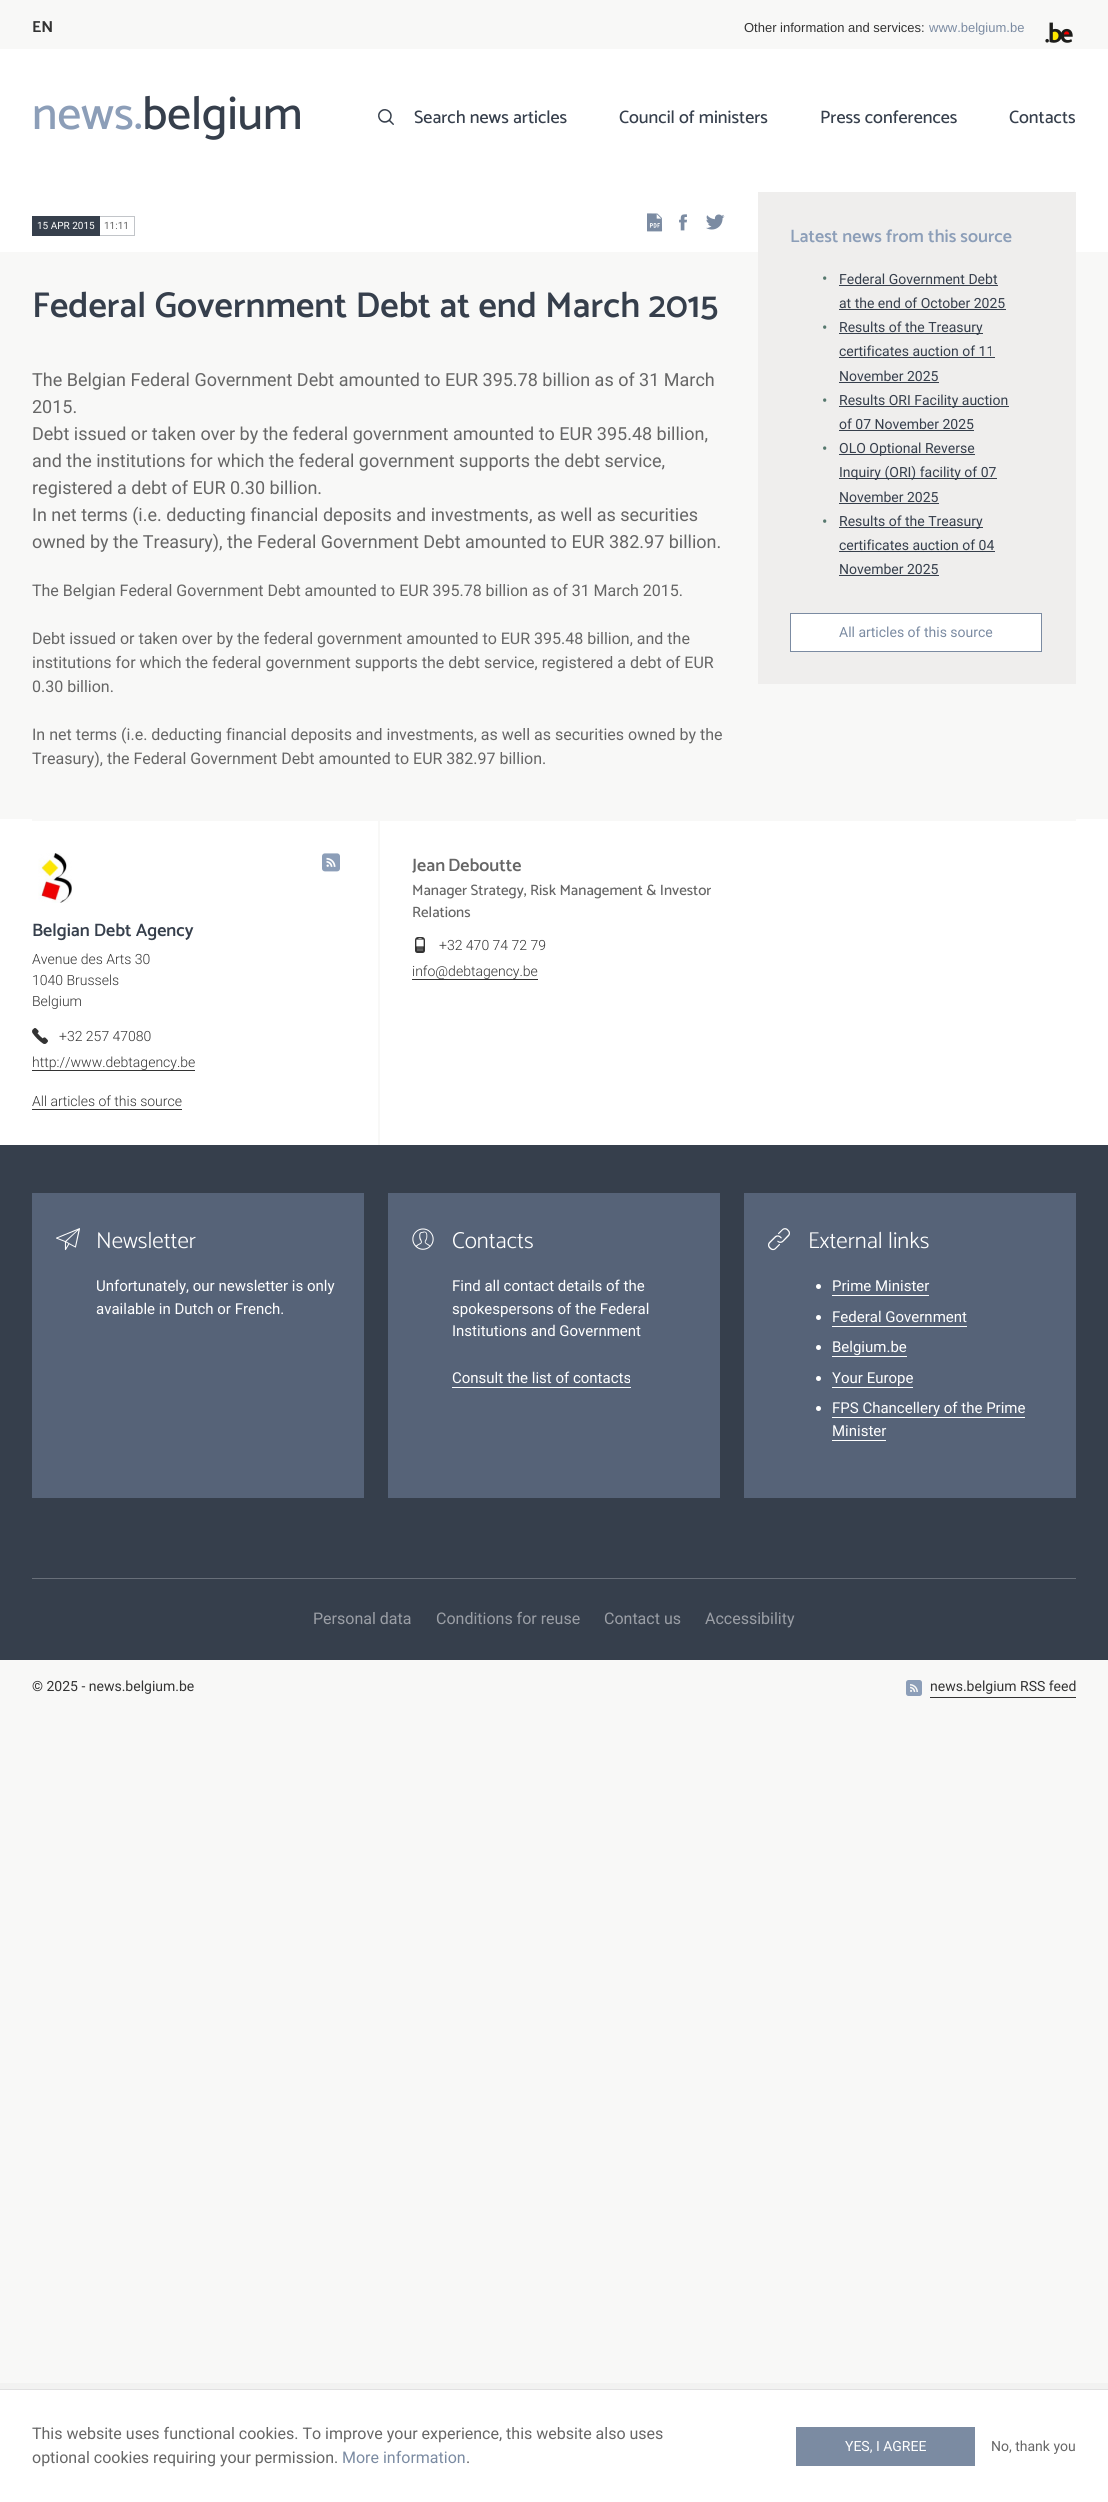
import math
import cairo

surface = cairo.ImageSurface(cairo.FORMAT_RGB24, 1108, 2502)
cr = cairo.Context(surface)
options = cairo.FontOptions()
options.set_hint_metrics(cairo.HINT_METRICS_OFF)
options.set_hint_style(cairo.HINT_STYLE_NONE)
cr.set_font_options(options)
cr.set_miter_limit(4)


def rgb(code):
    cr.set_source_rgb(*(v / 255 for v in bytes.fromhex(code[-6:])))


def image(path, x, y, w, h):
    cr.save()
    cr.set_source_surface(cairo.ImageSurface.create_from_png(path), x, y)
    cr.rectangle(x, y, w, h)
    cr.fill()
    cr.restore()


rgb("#f8f8f7")
cr.paint()
image("img/1.png", 1045, 22, 28, 21)
rgb("#ffffff")
cr.rectangle(0, 49, 1108, 203)
cr.fill()
image("img/2.png", 378, 109, 16, 16)
for x, y, w, h, color in [
    (32, 216, 68, 20, "#363f4c"),
    (100, 216, 35, 1, "#c2c5c9"),
    (134, 216, 1, 20, "#c2c5c9"),
    (100, 235, 35, 1, "#c2c5c9"),
]:
    rgb(color)
    cr.rectangle(x, y, w, h)
    cr.fill()
image("img/3.png", 647, 213, 16, 19)
image("img/4.png", 679, 214, 8, 17)
image("img/5.png", 706, 214, 19, 16)
for x, y, w, h, color in [
    (758, 192, 318, 492, "#efeeed"),
    (839, 285, 159, 1, "#363f4c"),
    (839, 309, 167, 1, "#363f4c"),
    (839, 333, 144, 1, "#363f4c"),
    (839, 357, 156, 1, "#363f4c"),
    (839, 382, 100, 1, "#363f4c"),
    (839, 406, 170, 1, "#363f4c"),
    (839, 430, 135, 1, "#363f4c"),
    (839, 454, 136, 1, "#363f4c"),
    (839, 478, 158, 1, "#363f4c"),
    (839, 503, 100, 1, "#363f4c"),
    (839, 527, 144, 1, "#363f4c"),
    (839, 551, 156, 1, "#363f4c"),
    (839, 575, 100, 1, "#363f4c"),
]:
    rgb(color)
    cr.rectangle(x, y, w, h)
    cr.fill()
rgb("#ffffff")
cr.rectangle(790.5, 613.5, 251, 38)
cr.fill_preserve()
rgb("#7b8ba2")
cr.set_line_width(1)
cr.stroke()
for x, y, w, h, color in [
    (0, 819, 1108, 326, "#ffffff"),
    (32, 819, 1044, 2, "#f8f8f7"),
    (378, 819, 2, 326, "#f8f8f7"),
]:
    rgb(color)
    cr.rectangle(x, y, w, h)
    cr.fill()
image("img/6.png", 38, 853, 34, 50)
image("img/7.png", 322, 853, 18, 19)
image("img/8.png", 32, 1028, 16, 16)
rgb("#333333")
cr.rectangle(32, 1070, 163, 1)
cr.fill()
cr.rectangle(32, 1109, 150, 1)
cr.fill()
image("img/9.png", 415, 937, 10, 16)
for x, y, w, h, color in [
    (412, 979, 126, 1, "#333333"),
    (0, 1145, 1108, 515, "#363f4c"),
    (32, 1193, 332, 305, "#566378"),
]:
    rgb(color)
    cr.rectangle(x, y, w, h)
    cr.fill()
image("img/10.png", 56, 1228, 24, 23)
cr.rectangle(388, 1193, 332, 305)
cr.fill()
image("img/11.png", 412, 1228, 22, 22)
rgb("#ffffff")
cr.rectangle(452, 1387, 179, 1)
cr.fill()
rgb("#566378")
cr.rectangle(744, 1193, 332, 305)
cr.fill()
image("img/12.png", 768, 1228, 22, 23)
rgb("#ffffff")
cr.arc(818.5, 1286.5, 2.5, 0, 2 * math.pi)
cr.fill()
cr.rectangle(832, 1295, 97, 1)
cr.fill()
cr.arc(818.5, 1317.5, 2.5, 0, 2 * math.pi)
cr.fill()
cr.rectangle(832, 1326, 135, 1)
cr.fill()
cr.arc(818.5, 1347.5, 2.5, 0, 2 * math.pi)
cr.fill()
cr.rectangle(832, 1356, 75, 1)
cr.fill()
cr.arc(818.5, 1378.5, 2.5, 0, 2 * math.pi)
cr.fill()
cr.rectangle(832, 1387, 81, 1)
cr.fill()
cr.arc(818.5, 1408.5, 2.5, 0, 2 * math.pi)
cr.fill()
for x, y, w, h, color in [
    (832, 1417, 193, 1, "#ffffff"),
    (832, 1440, 54, 1, "#ffffff"),
    (32, 1578, 1044, 1, "#686f79"),
    (930, 1697, 146, 1, "#333333"),
]:
    rgb(color)
    cr.rectangle(x, y, w, h)
    cr.fill()
image("img/13.png", 906, 1680, 16, 16)
rgb("#f2f2f1")
cr.new_path()
cr.move_to(-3, 2383)
cr.line_to(-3, 2502)
cr.line_to(0, 2502)
cr.line_to(0, 2389)
cr.line_to(1108, 2389)
cr.line_to(1108, 2502)
cr.line_to(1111, 2502)
cr.line_to(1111, 2383)
cr.close_path()
cr.fill()
for x, y, w, h, color in [
    (0, 2390, 1108, 112, "#ffffff"),
    (0, 2389, 1108, 1, "#e1e1e1"),
    (796, 2427, 179, 39, "#7b8ba2"),
]:
    rgb(color)
    cr.rectangle(x, y, w, h)
    cr.fill()
cr.select_font_face("Catamaran", cairo.FONT_SLANT_NORMAL, cairo.FONT_WEIGHT_BOLD)
cr.set_font_size(16)
rgb("#333333")
cr.move_to(32, 32)
cr.show_text("EN")
cr.select_font_face("Liberation Sans")
cr.set_font_size(13)
cr.move_to(744, 32)
cr.show_text("Other information and services:")
rgb("#7b8ba2")
cr.move_to(929, 32)
cr.show_text("www.belgium.be")
cr.select_font_face("Catamaran Medium")
cr.set_font_size(47)
rgb("#8c9eb8")
cr.move_to(32, 129)
cr.show_text("news.")
rgb("#363f4c")
cr.move_to(142, 129)
cr.show_text("belgium")
cr.set_font_size(18)
for x, y, s in [
    (414, 123, "Search news articles"),
    (619, 123, "Council of ministers"),
    (820, 123, "Press conferences"),
    (1009, 123, "Contacts"),
]:
    cr.move_to(x, y)
    cr.show_text(s)
cr.select_font_face("Roboto")
cr.set_font_size(10)
rgb("#ffffff")
cr.move_to(37, 229)
cr.show_text("15 APR 2015")
rgb("#666666")
cr.move_to(104, 229)
cr.show_text("11:11")
cr.select_font_face("Catamaran SemiBold")
cr.set_font_size(36)
rgb("#363f4c")
cr.move_to(32, 317)
cr.show_text("Federal Government Debt at end March 2015")
cr.select_font_face("Roboto")
cr.set_font_size(18)
rgb("#666666")
for x, y, s in [
    (32, 386, "The Belgian Federal Government Debt amounted to EUR 395.78 billion as of 31 March"),
    (32, 413, "2015."),
    (32, 440, "Debt issued or taken over by the federal government amounted to EUR 395.48 billion,"),
    (32, 467, "and the institutions for which the federal government supports the debt service,"),
    (32, 494, "registered a debt of EUR 0.30 billion."),
    (32, 521, "In net terms (i.e. deducting financial deposits and investments, as well as securities"),
    (32, 548, "owned by the Treasury), the Federal Government Debt amounted to EUR 382.97 billion."),
]:
    cr.move_to(x, y)
    cr.show_text(s)
cr.set_font_size(16)
for x, y, s in [
    (32, 596, "The Belgian Federal Government Debt amounted to EUR 395.78 billion as of 31 March 2015."),
    (32, 644, "Debt issued or taken over by the federal government amounted to EUR 395.48 billion, and the"),
    (32, 668, "institutions for which the federal government supports the debt service, registered a debt of EUR"),
    (32, 692, "0.30 billion."),
    (32, 740, "In net terms (i.e. deducting financial deposits and investments, as well as securities owned by the"),
    (32, 764, "Treasury), the Federal Government Debt amounted to EUR 382.97 billion."),
]:
    cr.move_to(x, y)
    cr.show_text(s)
cr.select_font_face("Catamaran SemiBold")
cr.set_font_size(18)
rgb("#8c9eb8")
cr.move_to(790, 242)
cr.show_text("Latest news from this source")
cr.select_font_face("Roboto")
cr.set_font_size(16)
rgb("#56786e")
cr.move_to(822, 284)
cr.show_text("•")
cr.set_font_size(14)
rgb("#363f4c")
cr.move_to(839, 284)
cr.show_text("Federal Government Debt")
cr.move_to(839, 308)
cr.show_text("at the end of October 2025")
cr.set_font_size(16)
rgb("#56786e")
cr.move_to(822, 333)
cr.show_text("•")
cr.set_font_size(14)
rgb("#363f4c")
for x, y, s in [
    (839, 332, "Results of the Treasury"),
    (839, 356, "certificates auction of 11"),
    (839, 381, "November 2025"),
]:
    cr.move_to(x, y)
    cr.show_text(s)
cr.set_font_size(16)
rgb("#56786e")
cr.move_to(822, 406)
cr.show_text("•")
cr.set_font_size(14)
rgb("#363f4c")
cr.move_to(839, 405)
cr.show_text("Results ORI Facility auction")
cr.move_to(839, 429)
cr.show_text("of 07 November 2025")
cr.set_font_size(16)
rgb("#56786e")
cr.move_to(822, 454)
cr.show_text("•")
cr.set_font_size(14)
rgb("#363f4c")
for x, y, s in [
    (839, 453, "OLO Optional Reverse"),
    (839, 477, "Inquiry (ORI) facility of 07"),
    (839, 502, "November 2025"),
]:
    cr.move_to(x, y)
    cr.show_text(s)
cr.set_font_size(16)
rgb("#56786e")
cr.move_to(822, 527)
cr.show_text("•")
cr.set_font_size(14)
rgb("#363f4c")
for x, y, s in [
    (839, 526, "Results of the Treasury"),
    (839, 550, "certificates auction of 04"),
    (839, 574, "November 2025"),
]:
    cr.move_to(x, y)
    cr.show_text(s)
rgb("#7b8ba2")
cr.move_to(839, 637)
cr.show_text("All articles of this source")
cr.select_font_face("Catamaran SemiBold")
cr.set_font_size(18)
rgb("#363f4c")
cr.move_to(32, 936)
cr.show_text("Belgian Debt Agency")
cr.select_font_face("Roboto Light")
cr.set_font_size(14)
rgb("#333333")
for x, y, s in [
    (32, 964, "Avenue des Arts 30"),
    (32, 985, "1040 Brussels"),
    (32, 1006, "Belgium"),
    (59, 1041, "+32 257 47080"),
    (32, 1067, "http://www.debtagency.be"),
    (32, 1106, "All articles of this source"),
]:
    cr.move_to(x, y)
    cr.show_text(s)
cr.select_font_face("Catamaran SemiBold")
cr.set_font_size(18)
rgb("#666666")
cr.move_to(412, 871)
cr.show_text("Jean")
cr.move_to(448, 871)
cr.show_text("Deboutte")
cr.select_font_face("Catamaran Medium")
cr.set_font_size(15)
cr.move_to(412, 895)
cr.show_text("Manager Strategy, Risk Management & Investor")
cr.move_to(412, 917)
cr.show_text("Relations")
cr.select_font_face("Roboto Light")
cr.set_font_size(14)
rgb("#333333")
cr.move_to(439, 950)
cr.show_text("+32 470 74 72 79")
cr.move_to(412, 976)
cr.show_text("info@debtagency.be")
cr.select_font_face("Catamaran Light")
cr.set_font_size(23)
rgb("#ffffff")
cr.move_to(96, 1248)
cr.show_text("Newsletter")
cr.select_font_face("Roboto")
cr.set_font_size(15)
cr.move_to(96, 1291)
cr.show_text("Unfortunately, our newsletter is only")
cr.move_to(96, 1314)
cr.show_text("available in Dutch or French.")
cr.select_font_face("Catamaran Light")
cr.set_font_size(23)
cr.move_to(452, 1248)
cr.show_text("Contacts")
cr.select_font_face("Roboto")
cr.set_font_size(15)
for x, y, s in [
    (452, 1291, "Find all contact details of the"),
    (452, 1314, "spokespersons of the Federal"),
    (452, 1336, "Institutions and Government"),
    (452, 1383, "Consult the list of contacts"),
]:
    cr.move_to(x, y)
    cr.show_text(s)
cr.select_font_face("Catamaran Light")
cr.set_font_size(23)
cr.move_to(808, 1248)
cr.show_text("External links")
cr.select_font_face("Roboto")
cr.set_font_size(15)
for x, y, s in [
    (832, 1291, "Prime Minister"),
    (832, 1322, "Federal Government"),
    (832, 1352, "Belgium.be"),
    (832, 1383, "Your Europe"),
    (832, 1413, "FPS Chancellery of the Prime"),
    (832, 1436, "Minister"),
]:
    cr.move_to(x, y)
    cr.show_text(s)
cr.set_font_size(16)
rgb("#9b9fa6")
for x, y, s in [
    (313, 1624, "Personal data"),
    (436, 1624, "Conditions for reuse"),
    (604, 1624, "Contact us"),
    (705, 1624, "Accessibility"),
]:
    cr.move_to(x, y)
    cr.show_text(s)
cr.set_font_size(14)
rgb("#333333")
cr.move_to(32, 1691)
cr.show_text("© 2025 - news.belgium.be")
cr.move_to(930, 1691)
cr.show_text("news.belgium RSS feed")
cr.set_font_size(16)
rgb("#666666")
cr.move_to(32, 2439)
cr.show_text("This website uses functional cookies. To improve your experience, this website also uses")
cr.move_to(32, 2463)
cr.show_text("optional cookies requiring your permission.")
rgb("#7b8ba2")
cr.move_to(342, 2463)
cr.show_text("More information")
rgb("#666666")
cr.move_to(466, 2463)
cr.show_text(".")
cr.set_font_size(14)
rgb("#ffffff")
cr.move_to(845, 2451)
cr.show_text("YES, I AGREE")
rgb("#666666")
cr.move_to(991, 2451)
cr.show_text("No, thank you")
surface.write_to_png("page.png")
